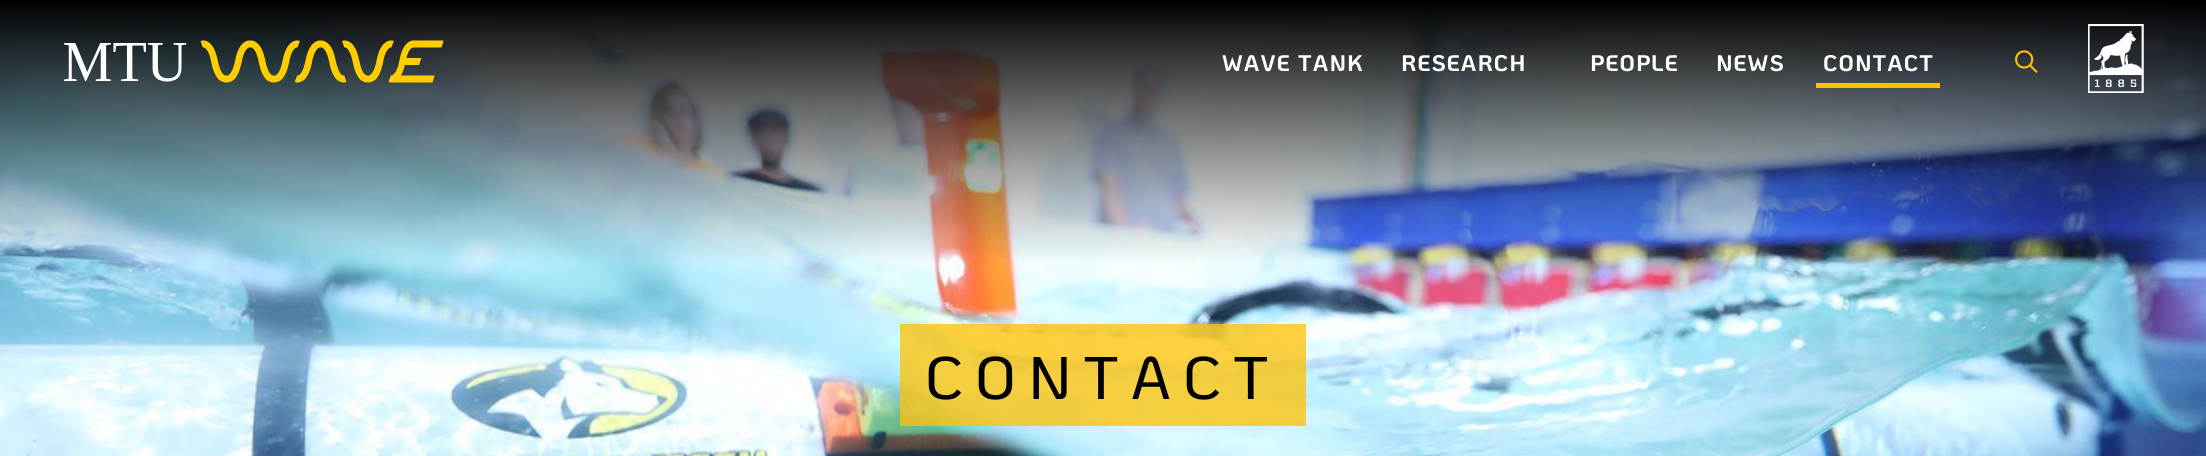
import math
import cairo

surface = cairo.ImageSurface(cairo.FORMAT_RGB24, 2206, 456)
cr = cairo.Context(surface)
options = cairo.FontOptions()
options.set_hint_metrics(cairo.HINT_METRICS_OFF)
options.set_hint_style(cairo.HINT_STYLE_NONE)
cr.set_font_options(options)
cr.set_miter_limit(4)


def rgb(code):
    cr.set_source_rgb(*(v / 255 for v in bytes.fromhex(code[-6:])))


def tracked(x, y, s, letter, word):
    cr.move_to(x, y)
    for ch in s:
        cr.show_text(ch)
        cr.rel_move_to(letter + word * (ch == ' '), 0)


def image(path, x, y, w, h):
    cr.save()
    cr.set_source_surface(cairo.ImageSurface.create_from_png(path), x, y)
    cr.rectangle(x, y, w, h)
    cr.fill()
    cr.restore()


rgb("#ffffff")
cr.paint()
image("img/4.png", 0, 0, 2206, 456)
image("img/1.png", 64, 40, 380, 43)
rgb("#ffc000")
cr.rectangle(1816, 83, 124, 5)
cr.fill()
image("img/2.png", 2015, 50, 23, 23)
image("img/3.png", 2088, 24, 56, 69)
cr.set_source_rgba(1, 0.753, 0, 0.75)
cr.rectangle(900, 324, 406, 102)
cr.fill()
cr.select_font_face("KoHo", cairo.FONT_SLANT_NORMAL, cairo.FONT_WEIGHT_BOLD)
cr.set_font_size(22.5)
rgb("#ffffff")
for x, y, s in [
    (1222, 71, "WAVE TANK"),
    (1401, 71, "RESEARCH"),
    (1590, 71, "PEOPLE"),
    (1716, 71, "NEWS"),
    (1823, 71, "CONTACT"),
]:
    tracked(x, y, s, 1.1, 0)
cr.select_font_face("KoHo Medium")
cr.set_font_size(60)
rgb("#000000")
tracked(925, 399, "CONTACT", 12, 0)
surface.write_to_png("page.png")
